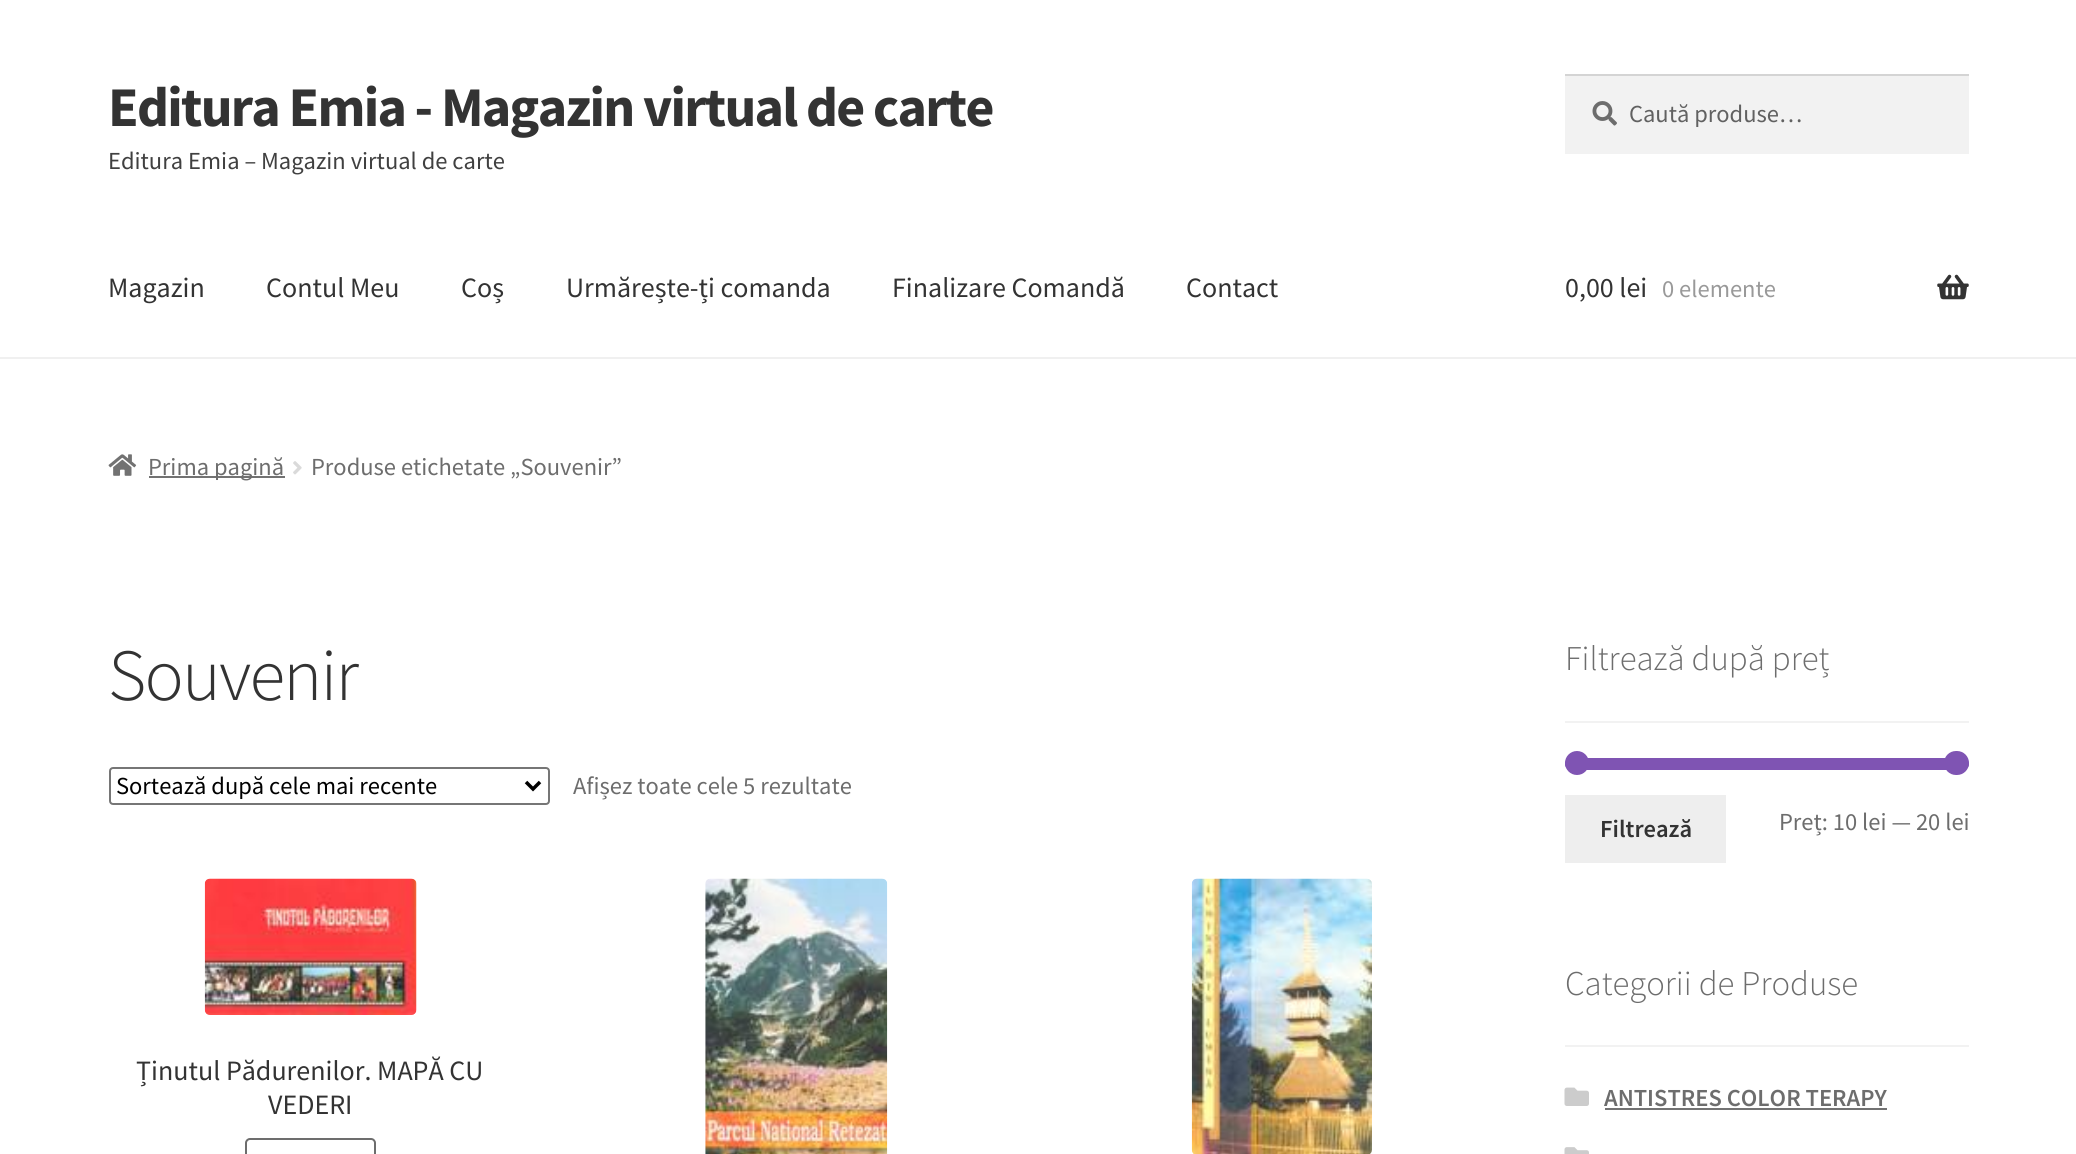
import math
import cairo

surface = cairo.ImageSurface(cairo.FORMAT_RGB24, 2076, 1154)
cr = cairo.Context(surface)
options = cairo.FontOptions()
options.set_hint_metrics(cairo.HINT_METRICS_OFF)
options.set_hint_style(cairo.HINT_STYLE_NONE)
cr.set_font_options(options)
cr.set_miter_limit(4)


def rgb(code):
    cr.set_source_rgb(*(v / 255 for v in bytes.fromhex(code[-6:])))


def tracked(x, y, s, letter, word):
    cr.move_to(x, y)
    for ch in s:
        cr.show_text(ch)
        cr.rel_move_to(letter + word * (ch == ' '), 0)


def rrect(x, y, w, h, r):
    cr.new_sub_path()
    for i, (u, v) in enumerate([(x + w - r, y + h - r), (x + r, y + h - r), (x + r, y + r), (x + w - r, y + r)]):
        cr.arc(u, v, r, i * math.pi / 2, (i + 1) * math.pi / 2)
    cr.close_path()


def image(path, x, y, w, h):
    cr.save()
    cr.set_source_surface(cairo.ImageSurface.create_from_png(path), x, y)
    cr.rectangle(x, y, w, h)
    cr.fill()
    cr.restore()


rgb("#ffffff")
cr.paint()
rgb("#f0f0f0")
cr.rectangle(0, 357, 2076, 2)
cr.fill()
rgb("#f2f2f2")
cr.rectangle(1565, 76, 404, 78)
cr.fill()
image("img/1.png", 1592, 101, 25, 25)
rgb("#d4d4d4")
cr.rectangle(1565, 74, 404, 2)
cr.fill()
image("img/2.png", 1937, 274, 32, 26)
image("img/3.png", 108, 454, 29, 22)
rgb("#727272")
cr.rectangle(149, 476, 136, 2)
cr.fill()
image("img/4.png", 293, 461, 9, 14)
rrect(110, 768, 439, 36, 3)
rgb("#767676")
cr.stroke()
cr.new_path()
cr.move_to(526, 782)
cr.line_to(533, 789)
cr.line_to(540, 782)
rgb("#000000")
cr.set_line_width(3.5)
cr.stroke()
image("img/5.png", 204, 878, 213, 137)
rrect(246, 1139, 129, 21, 4)
rgb("#6d6d6d")
cr.set_line_width(2)
cr.stroke()
image("img/6.png", 705, 878, 183, 276)
image("img/7.png", 1191, 878, 181, 276)
rgb("#f2f2f2")
cr.rectangle(1565, 721, 404, 2)
cr.fill()
rgb("#7f54b3")
rrect(1565, 758, 404, 12, 6)
cr.fill()
cr.arc(1577, 763, 12, 0, 2 * math.pi)
cr.fill()
rrect(1944, 751, 25, 24, 12)
cr.fill()
rgb("#eeeeee")
cr.rectangle(1565, 795, 161, 68)
cr.fill()
rgb("#f2f2f2")
cr.rectangle(1565, 1045, 404, 2)
cr.fill()
image("img/8.png", 1564, 1087, 25, 19)
rgb("#727272")
cr.rectangle(1605, 1108, 282, 2)
cr.fill()
image("img/9.png", 1564, 1147, 25, 7)
cr.select_font_face("Source Sans Pro", cairo.FONT_SLANT_NORMAL, cairo.FONT_WEIGHT_BOLD)
cr.set_font_size(56)
rgb("#333333")
tracked(108, 126, "Editura Emia - Magazin virtual de carte", -1.75, 0)
cr.select_font_face("Source Sans Pro")
cr.set_font_size(24.5)
rgb("#404040")
cr.move_to(108, 169)
cr.show_text("Editura Emia – Magazin virtual de carte")
rgb("#616161")
cr.move_to(1629, 122)
cr.show_text("Caută produse…")
cr.set_font_size(28)
rgb("#333333")
for x, y, s in [
    (108, 297, "Magazin"),
    (266, 297, "Contul Meu"),
    (461, 297, "Coș"),
    (566, 297, "Urmărește-ți comanda"),
    (892, 297, "Finalizare Comandă"),
    (1186, 297, "Contact"),
    (1565, 297, "0,00 lei"),
]:
    cr.move_to(x, y)
    cr.show_text(s)
cr.set_font_size(24.5)
rgb("#999999")
cr.move_to(1662, 297)
cr.show_text("0 elemente")
rgb("#6d6d6d")
cr.move_to(148, 475)
cr.show_text("Prima pagină")
cr.move_to(311, 475)
cr.show_text("Produse etichetate „Souvenir”")
cr.select_font_face("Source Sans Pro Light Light")
cr.set_font_size(73.5)
rgb("#333333")
tracked(108, 700, "Souvenir", -1.75, 0)
cr.select_font_face("Source Sans Pro")
cr.set_font_size(24.5)
rgb("#000000")
cr.move_to(116, 794)
cr.show_text("Sortează după cele mai recente")
rgb("#6d6d6d")
cr.move_to(573, 794)
cr.show_text("Afișez toate cele 5 rezultate")
cr.set_font_size(28)
rgb("#333333")
cr.move_to(136, 1080)
cr.show_text("Ținutul Pădurenilor. MAPĂ CU")
cr.move_to(268, 1114)
cr.show_text("VEDERI")
cr.select_font_face("Source Sans Pro Light Light")
cr.set_font_size(34.75)
rgb("#6d6d6d")
cr.move_to(1565, 670)
cr.show_text("Filtrează după preț")
cr.select_font_face("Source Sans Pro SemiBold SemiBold")
cr.set_font_size(24.5)
rgb("#333333")
cr.move_to(1600, 837)
cr.show_text("Filtrează")
cr.select_font_face("Source Sans Pro")
rgb("#6d6d6d")
cr.move_to(1779, 830)
cr.show_text("Preț: 10 lei — 20 lei")
cr.select_font_face("Source Sans Pro Light Light")
cr.set_font_size(34.75)
cr.move_to(1565, 995)
cr.show_text("Categorii de Produse")
cr.select_font_face("Source Sans Pro SemiBold SemiBold")
cr.set_font_size(24.5)
cr.move_to(1604, 1106)
cr.show_text("ANTISTRES COLOR TERAPY")
surface.write_to_png("page.png")
